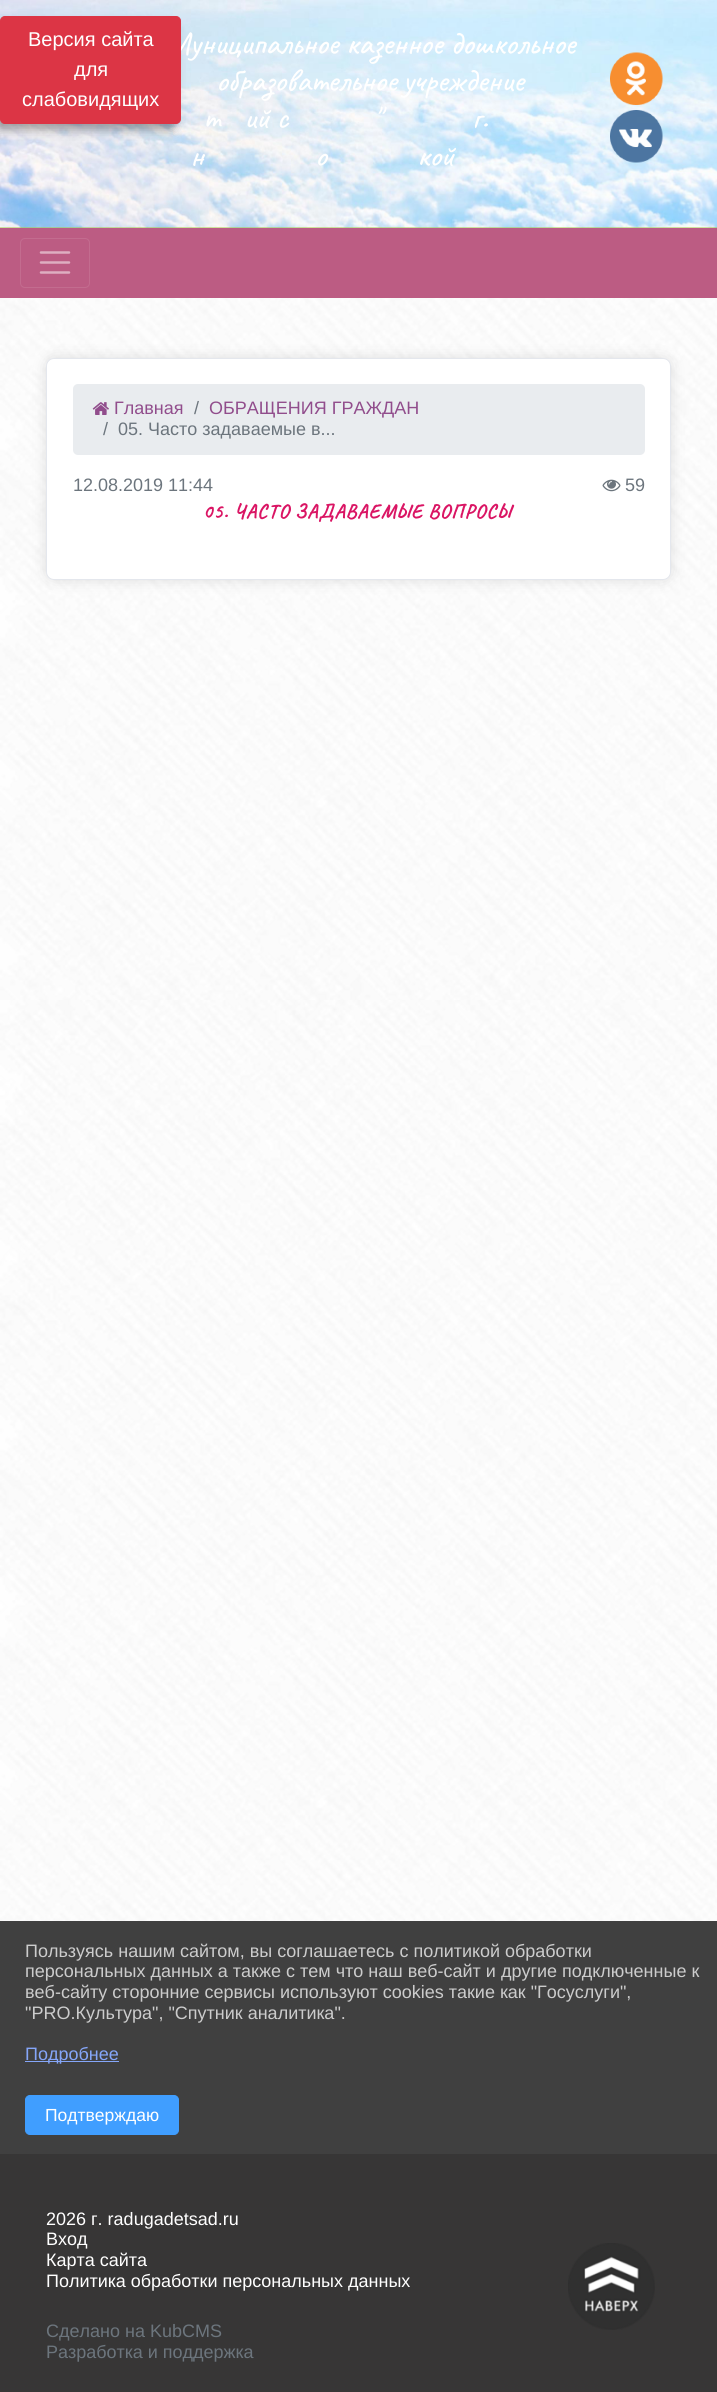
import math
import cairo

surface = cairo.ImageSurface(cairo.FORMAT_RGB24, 717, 2392)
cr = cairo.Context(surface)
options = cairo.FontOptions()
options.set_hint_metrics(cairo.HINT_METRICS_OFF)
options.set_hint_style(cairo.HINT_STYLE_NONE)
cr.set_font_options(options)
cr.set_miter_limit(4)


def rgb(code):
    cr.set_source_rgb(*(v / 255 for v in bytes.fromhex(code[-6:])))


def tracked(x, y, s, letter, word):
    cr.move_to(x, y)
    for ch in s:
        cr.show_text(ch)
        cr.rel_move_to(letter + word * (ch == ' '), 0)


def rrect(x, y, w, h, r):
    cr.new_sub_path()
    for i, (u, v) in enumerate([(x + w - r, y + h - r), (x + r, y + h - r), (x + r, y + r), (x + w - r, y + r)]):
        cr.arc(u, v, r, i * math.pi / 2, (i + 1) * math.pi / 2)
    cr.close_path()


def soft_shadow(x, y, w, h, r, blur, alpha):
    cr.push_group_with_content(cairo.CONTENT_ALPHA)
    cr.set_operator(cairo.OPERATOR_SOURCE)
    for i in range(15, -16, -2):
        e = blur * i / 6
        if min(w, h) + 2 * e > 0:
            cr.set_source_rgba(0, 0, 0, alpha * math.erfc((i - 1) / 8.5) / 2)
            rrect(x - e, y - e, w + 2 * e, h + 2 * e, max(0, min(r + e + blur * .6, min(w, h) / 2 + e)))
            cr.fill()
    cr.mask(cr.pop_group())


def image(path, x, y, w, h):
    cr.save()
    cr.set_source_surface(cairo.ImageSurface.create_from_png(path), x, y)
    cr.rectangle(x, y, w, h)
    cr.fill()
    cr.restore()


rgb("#ffffff")
cr.paint()
image("img/1.png", 0, 298, 717, 1623)
rgb("#a7cb45")
cr.rectangle(0, 227, 717, 1)
cr.fill()
image("img/2.png", 0, 0, 717, 228)
rgb("#000000")
soft_shadow(-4, 25, 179, 105, 4, 5, 0.35)
image("img/3.png", 610, 52, 53, 53)
image("img/4.png", 610, 110, 53, 53)
rgb("#bc5c83")
cr.rectangle(0, 228, 717, 70)
cr.fill()
rrect(20.5, 238.5, 69, 49, 4.5)
rgb("#c36c8f")
cr.set_line_width(1)
cr.stroke()
cr.new_path()
cr.move_to(41, 252.5)
cr.line_to(69, 252.5)
cr.move_to(41, 262.5)
cr.line_to(69, 262.5)
cr.move_to(41, 272.5)
cr.line_to(69, 272.5)
rgb("#deaec1")
cr.set_line_width(2.5)
cr.set_line_cap(cairo.LINE_CAP_ROUND)
cr.stroke()
rgb("#000000")
soft_shadow(46, 358, 625, 222, 8, 7.5, 0.12)
rgb("#ffffff")
rrect(46.5, 358.5, 624, 221, 7.5)
cr.fill_preserve()
rgb("#e4e7ed")
cr.set_line_width(1)
cr.set_line_cap(cairo.LINE_CAP_BUTT)
cr.stroke()
rgb("#e9ecef")
rrect(73, 384, 572, 71, 5)
cr.fill()
image("img/5.png", 92, 402, 17, 13)
image("img/6.png", 602, 479, 19, 13)
rgb("#373636")
cr.rectangle(0, 2154, 717, 238)
cr.fill()
image("img/7.png", 568, 2243, 87, 87)
rgb("#404040")
cr.rectangle(0, 1921, 717, 233)
cr.fill()
rgb("#85a6f9")
cr.rectangle(25, 2061, 94, 1)
cr.fill()
rgb("#409eff")
rrect(25.5, 2095.5, 153, 39, 4.5)
cr.fill_preserve()
cr.stroke()
cr.select_font_face("Caveat Medium")
cr.set_font_size(32.5)
rgb("#ffffff")
cr.move_to(166, 54)
cr.show_text("Муниципальное казенное дошкольное")
rgb("#dc3545")
rrect(0.5, 16.5, 180, 107, 4.5)
cr.fill_preserve()
cr.stroke()
cr.select_font_face("Liberation Sans")
cr.set_font_size(20)
rgb("#ffffff")
for x, y, s in [
    (22, 106, "слабовидящих"),
    (74, 76, "для"),
    (28, 46, "Версия сайта"),
]:
    cr.move_to(x, y)
    cr.show_text(s)
cr.select_font_face("Caveat Medium")
cr.set_font_size(32.5)
tracked(216, 91, "образовательное учреждение", 0, -2)
for x, y, s in [
    (203, 128, "т"),
    (244, 128, "ий с"),
    (373, 128, "\""),
    (472, 128, "г."),
]:
    tracked(x, y, s, 0, -1)
for x, y, s in [
    (190, 166, "н"),
    (315, 166, "о"),
    (417, 166, "кой"),
]:
    tracked(x, y, s, 0, 2)
cr.select_font_face("Liberation Sans")
cr.set_font_size(18)
rgb("#914d8c")
cr.move_to(114, 414)
cr.show_text("Главная")
rgb("#6c757d")
cr.move_to(194, 414)
cr.show_text("/")
rgb("#914d8c")
cr.move_to(209, 414)
cr.show_text("ОБРАЩЕНИЯ ГРАЖДАН")
rgb("#6c757d")
for x, y, s in [
    (103, 435, "/"),
    (118, 435, "05. Часто задаваемые в..."),
    (73, 491, "12.08.2019 11:44"),
    (625, 491, "59"),
]:
    cr.move_to(x, y)
    cr.show_text(s)
cr.select_font_face("Caveat", cairo.FONT_SLANT_NORMAL, cairo.FONT_WEIGHT_BOLD)
cr.set_font_size(20)
rgb("#da1564")
tracked(203, 518, "05. ЧАСТО ЗАДАВАЕМЫЕ ВОПРОСЫ", 1.25, -1)
cr.select_font_face("Liberation Sans")
cr.set_font_size(18)
rgb("#ffffff")
for x, y, s in [
    (46, 2225, "2026 г. radugadetsad.ru"),
    (46, 2245, "Вход"),
    (46, 2266, "Карта сайта"),
    (46, 2287, "Политика обработки персональных данных"),
]:
    cr.move_to(x, y)
    cr.show_text(s)
rgb("#6c757d")
cr.move_to(46, 2337)
cr.show_text("Сделано на KubCMS")
cr.move_to(46, 2358)
cr.show_text("Разработка и поддержка")
rgb("#cccccc")
for x, y, s in [
    (25, 1957, "Пользуясь нашим сайтом, вы соглашаетесь с политикой обработки"),
    (25, 1977, "персональных данных а также с тем что наш веб-сайт и другие подключенные к"),
    (25, 1998, "веб-сайту сторонние сервисы используют cookies такие как \"Госуслуги\","),
    (25, 2019, "\"PRO.Культура\", \"Спутник аналитика\"."),
]:
    cr.move_to(x, y)
    cr.show_text(s)
rgb("#85a6f9")
cr.move_to(25, 2060)
cr.show_text("Подробнее")
cr.set_font_size(17.5)
rgb("#ffffff")
cr.move_to(45, 2121)
cr.show_text("Подтверждаю")
surface.write_to_png("page.png")
